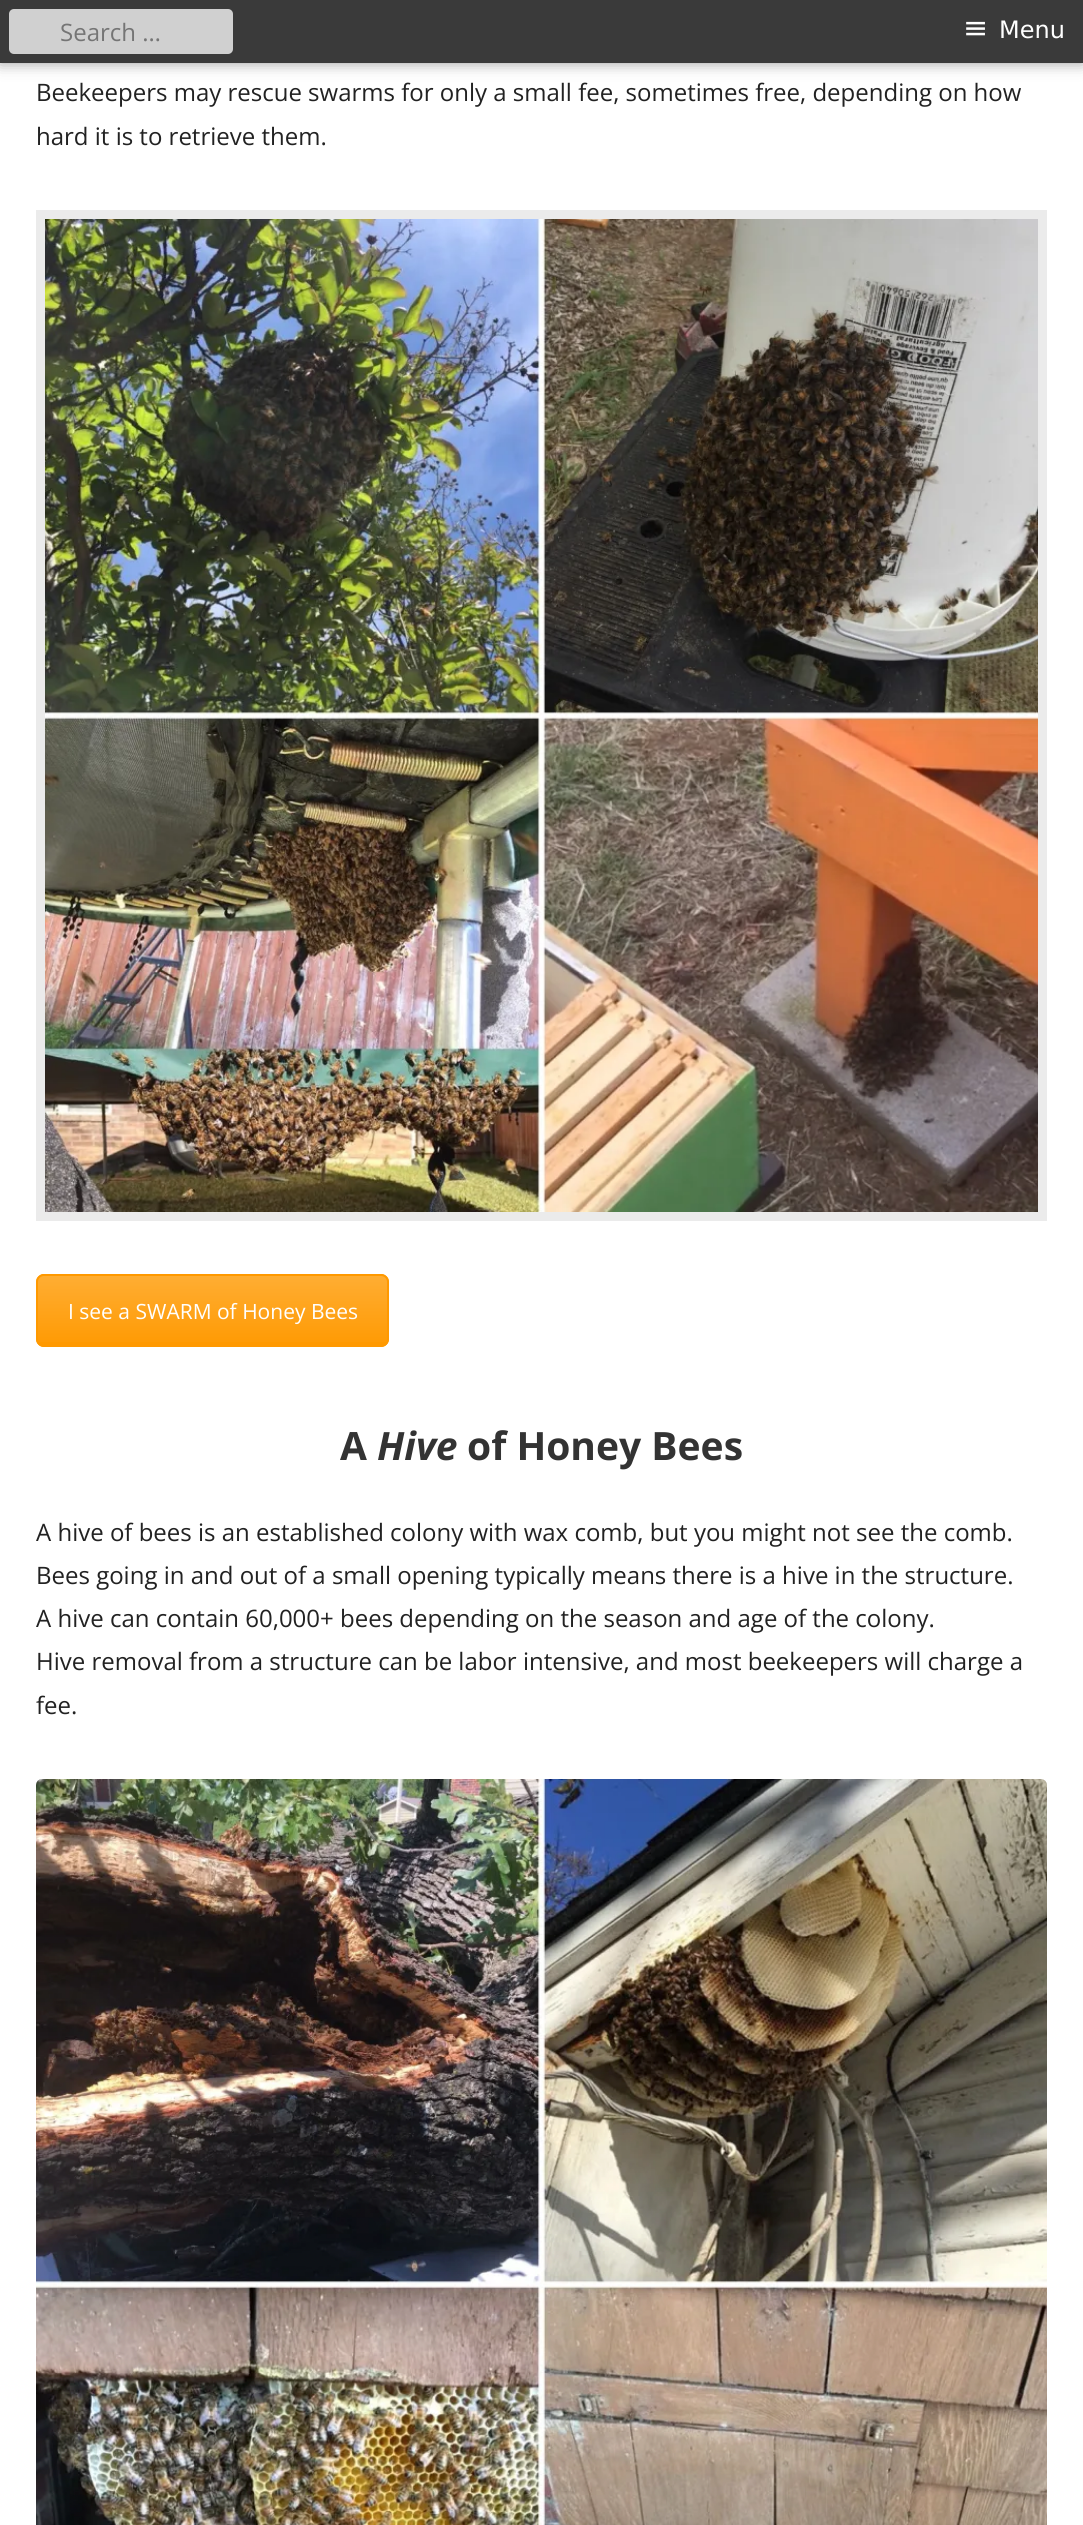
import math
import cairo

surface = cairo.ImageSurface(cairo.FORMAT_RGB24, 1083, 2525)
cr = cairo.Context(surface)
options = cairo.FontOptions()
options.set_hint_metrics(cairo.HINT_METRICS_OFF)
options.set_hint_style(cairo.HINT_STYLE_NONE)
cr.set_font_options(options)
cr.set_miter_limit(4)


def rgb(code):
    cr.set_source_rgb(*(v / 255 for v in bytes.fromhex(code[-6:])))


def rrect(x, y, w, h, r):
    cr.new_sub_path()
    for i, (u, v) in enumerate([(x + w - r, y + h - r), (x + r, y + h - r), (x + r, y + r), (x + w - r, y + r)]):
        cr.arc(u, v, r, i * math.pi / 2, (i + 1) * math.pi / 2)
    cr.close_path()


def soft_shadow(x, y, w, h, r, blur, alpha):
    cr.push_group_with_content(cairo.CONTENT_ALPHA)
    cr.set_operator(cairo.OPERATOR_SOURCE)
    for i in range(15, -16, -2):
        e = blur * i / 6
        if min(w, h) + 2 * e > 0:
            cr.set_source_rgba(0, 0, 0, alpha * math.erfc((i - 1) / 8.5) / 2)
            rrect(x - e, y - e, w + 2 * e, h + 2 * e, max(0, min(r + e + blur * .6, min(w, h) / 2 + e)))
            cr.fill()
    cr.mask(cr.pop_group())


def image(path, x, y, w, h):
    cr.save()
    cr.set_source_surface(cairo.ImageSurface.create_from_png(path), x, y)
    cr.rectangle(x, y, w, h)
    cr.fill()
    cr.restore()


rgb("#ffffff")
cr.paint()
rgb("#000000")
soft_shadow(0, 0, 1083, 63, 0, 7.5, 0.4)
rgb("#3a3a3a")
cr.rectangle(0, 0, 1083, 63)
cr.fill()
rgb("#d0d0d0")
rrect(9, 9, 224, 45, 5)
cr.fill()
rgb("#ebebeb")
cr.rectangle(36, 210, 1011, 1011)
cr.fill()
image("img/1.png", 45, 219, 993, 993)
rgb("#ff9900")
rrect(36, 1274, 353, 73, 8)
cr.fill()
cr.save()
rrect(36, 1274, 353, 73, 8)
cr.clip()
gradient = cairo.LinearGradient(212, 1275, 212, 1346)
gradient.add_color_stop_rgba(0, 1, 1, 1, 0.2)
gradient.add_color_stop_rgba(1, 1, 1, 1, 0.01)
cr.set_source(gradient)
cr.rectangle(36, 1275, 353, 67)
cr.fill()
cr.restore()
rrect(37, 1275, 351, 71, 7)
cr.stroke()
image("img/2.png", 36, 1779, 1011, 746)
cr.select_font_face("Open Sans")
cr.set_font_size(24)
rgb("#757575")
cr.move_to(60, 41)
cr.show_text("Search …")
cr.select_font_face("DejaVu Sans")
cr.set_font_size(30)
rgb("#ffffff")
cr.move_to(963, 38)
cr.show_text("≡")
cr.set_font_size(24)
cr.move_to(999, 38)
cr.show_text("Menu")
cr.select_font_face("Open Sans")
rgb("#222222")
cr.move_to(36, 101)
cr.show_text("Beekeepers may rescue swarms for only a small fee, sometimes free, depending on how")
cr.move_to(36, 145)
cr.show_text("hard it is to retrieve them.")
cr.set_font_size(21)
rgb("#ffffff")
cr.move_to(68, 1319)
cr.show_text("I see a SWARM of Honey Bees")
cr.select_font_face("Open Sans", cairo.FONT_SLANT_NORMAL, cairo.FONT_WEIGHT_BOLD)
cr.set_font_size(39)
rgb("#333333")
cr.move_to(340, 1460)
cr.show_text("A")
cr.select_font_face("Open Sans", cairo.FONT_SLANT_ITALIC, cairo.FONT_WEIGHT_BOLD)
cr.move_to(377, 1460)
cr.show_text("Hive")
cr.select_font_face("Open Sans", cairo.FONT_SLANT_NORMAL, cairo.FONT_WEIGHT_BOLD)
cr.move_to(467, 1460)
cr.show_text("of Honey Bees")
cr.select_font_face("Open Sans")
cr.set_font_size(24)
rgb("#222222")
for x, y, s in [
    (36, 1541, "A hive of bees is an established colony with wax comb, but you might not see the comb."),
    (36, 1584, "Bees going in and out of a small opening typically means there is a hive in the structure."),
    (36, 1627, "A hive can contain 60,000+ bees depending on the season and age of the colony."),
    (36, 1670, "Hive removal from a structure can be labor intensive, and most beekeepers will charge a"),
    (36, 1714, "fee."),
]:
    cr.move_to(x, y)
    cr.show_text(s)
surface.write_to_png("page.png")
